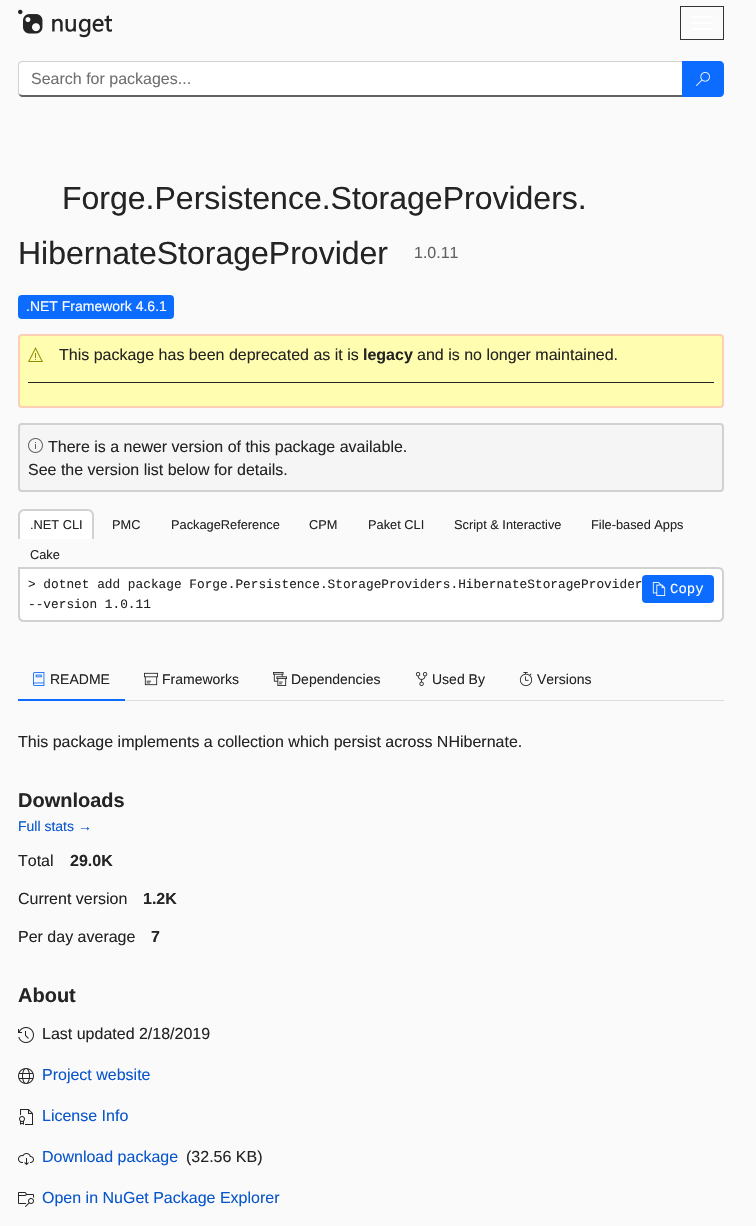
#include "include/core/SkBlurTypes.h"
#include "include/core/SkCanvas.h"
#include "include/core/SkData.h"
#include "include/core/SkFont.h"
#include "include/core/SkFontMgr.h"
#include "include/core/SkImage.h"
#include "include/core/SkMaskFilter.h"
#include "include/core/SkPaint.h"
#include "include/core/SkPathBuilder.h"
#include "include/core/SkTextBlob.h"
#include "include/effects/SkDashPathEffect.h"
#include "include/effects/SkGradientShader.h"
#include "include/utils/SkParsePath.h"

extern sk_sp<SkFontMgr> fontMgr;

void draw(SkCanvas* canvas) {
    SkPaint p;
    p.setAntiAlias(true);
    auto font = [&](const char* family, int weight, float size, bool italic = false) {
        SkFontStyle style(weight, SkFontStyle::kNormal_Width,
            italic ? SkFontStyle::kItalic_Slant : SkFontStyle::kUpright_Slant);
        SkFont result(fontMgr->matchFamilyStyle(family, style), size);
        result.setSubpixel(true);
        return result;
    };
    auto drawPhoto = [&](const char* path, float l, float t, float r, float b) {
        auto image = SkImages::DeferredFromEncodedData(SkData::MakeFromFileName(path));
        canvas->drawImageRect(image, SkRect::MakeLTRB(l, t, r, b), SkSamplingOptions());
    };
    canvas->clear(0xFFFAFAFA);
    drawPhoto("media/1.png", 18, 9, 112, 38);
    p.setStyle(SkPaint::kStroke_Style);
    p.setStrokeWidth(1);
    p.setColor(0xFF333333);
    canvas->drawRect(SkRect::MakeLTRB(680.5f, 6.5f, 723.5f, 39.5f), p);
    p.setStyle(SkPaint::kFill_Style);
    p.setColor(0xFFFFFFFF);
    canvas->drawRoundRect(SkRect::MakeLTRB(691, 16, 713, 18), 1, 1, p);
    canvas->drawRoundRect(SkRect::MakeLTRB(691, 22, 713, 24), 1, 1, p);
    canvas->drawRoundRect(SkRect::MakeLTRB(691, 28, 713, 30), 1, 1, p);
    canvas->drawPath(SkPathBuilder().moveTo(22, 62).lineTo(682, 62).lineTo(682, 95).lineTo(22, 95).cubicTo(20, 95, 19, 94, 19, 93).lineTo(19, 65).cubicTo(19, 63, 20, 62, 22, 62).close().detach(), p);
    p.setColor(0xFFD1D1D1);
    canvas->drawPath(SkPathBuilder().moveTo(22, 61).lineTo(19, 62).lineTo(20, 63).lineTo(22, 62).lineTo(682, 62).lineTo(683, 61).close().detach(), p);
    p.setColor(0xFF616161);
    canvas->drawPath(SkPathBuilder().moveTo(683, 97).lineTo(682, 95).lineTo(22, 95).lineTo(19, 94).lineTo(19, 95).cubicTo(20, 96, 21, 97, 22, 97).close().detach(), p);
    p.setColor(0xFFD1D1D1);
    canvas->drawPath(SkPathBuilder().moveTo(18, 65).lineTo(18, 93).cubicTo(18, 94, 18.5f, 94.5f, 19, 95.5f).lineTo(19.5f, 94).lineTo(19, 93).lineTo(19, 64.5f).lineTo(20, 63).lineTo(19, 62).cubicTo(18.5f, 63, 18, 64, 18, 65).close().detach(), p);
    auto font1 = font("Liberation Sans", 400, 16);
    p.setColor(0xFF707070);
    canvas->drawString("Search for packages...", 31, 84, font1, p);
    p.setColor(0xFF0B6CFF);
    canvas->drawPath(SkPathBuilder().moveTo(682, 61).lineTo(720, 61).cubicTo(722, 61, 724, 63, 724, 65).lineTo(724, 93).cubicTo(724, 95, 722, 97, 720, 97).lineTo(682, 97).close().detach(), p);
    drawPhoto("media/2.png", 696, 72, 710, 86);
    auto font2 = font("Liberation Sans", 400, 32);
    p.setColor(0xFF242424);
    canvas->drawString("Forge.Persistence.StorageProviders.", 62, 209, font2, p);
    canvas->drawString("HibernateStorageProvider", 18, 264, font2, p);
    p.setColor(0xFF616161);
    canvas->drawString("1.0.11", 414, 258, font1, p);
    p.setColor(0xFF0B6CFF);
    canvas->drawRoundRect(SkRect::MakeLTRB(18, 295, 174, 319), 4, 4, p);
    auto font3 = font("Liberation Sans", 400, 14);
    p.setColor(0xFFFFFFFF);
    canvas->drawString(".NET Framework 4.6.1", 26, 311, font3, p);
    p.setColor(0xFFFFFDAF);
    canvas->drawRoundRect(SkRect::MakeLTRB(19, 335, 723, 407), 3, 3, p);
    p.setStyle(SkPaint::kStroke_Style);
    p.setStrokeWidth(2);
    p.setColor(0xFFFDCFB4);
    canvas->drawRoundRect(SkRect::MakeLTRB(19, 335, 723, 407), 3, 3, p);
    drawPhoto("media/3.png", 28, 347, 43, 362);
    p.setStyle(SkPaint::kFill_Style);
    p.setColor(0xFF242424);
    canvas->drawString("This package has been deprecated as it is", 59, 360, font1, p);
    auto font4 = font("Liberation Sans", 700, 16);
    canvas->drawString("legacy", 363, 360, font4, p);
    canvas->drawString("and is no longer maintained.", 417, 360, font1, p);
    canvas->drawRect(SkRect::MakeLTRB(28, 382, 714, 383), p);
    p.setColor(0xFFF5F5F5);
    canvas->drawRoundRect(SkRect::MakeLTRB(19, 424, 723, 491), 3, 3, p);
    p.setStyle(SkPaint::kStroke_Style);
    p.setColor(0xFFD1D1D1);
    canvas->drawRoundRect(SkRect::MakeLTRB(19, 424, 723, 491), 3, 3, p);
    drawPhoto("media/4.png", 28, 438, 43, 453);
    p.setStyle(SkPaint::kFill_Style);
    p.setColor(0xFF242424);
    canvas->drawString("There is a newer version of this package available.", 48, 452, font1, p);
    canvas->drawString("See the version list below for details.", 28, 475, font1, p);
    p.setColor(0xFFFFFFFF);
    canvas->drawPath(SkPathBuilder().moveTo(24, 509).lineTo(88, 509).cubicTo(91.5f, 509, 94, 511.5f, 94, 515).lineTo(94, 539).lineTo(18, 539).lineTo(18, 515).cubicTo(18, 511.5f, 20.5f, 509, 24, 509).close().detach(), p);
    p.setColor(0xFFD1D1D1);
    canvas->drawPath(SkPathBuilder(SkPathFillType::kEvenOdd).moveTo(24, 509).lineTo(88, 509).cubicTo(91, 509, 94, 512, 94, 515).lineTo(94, 539).lineTo(18, 539).lineTo(18, 515).cubicTo(18, 512, 21, 509, 24, 509).close().moveTo(24, 511).lineTo(88, 511).cubicTo(90, 511, 92, 513, 92, 515).lineTo(92, 539).lineTo(20, 539).lineTo(20, 515).cubicTo(20, 513, 22, 511, 24, 511).close().detach(), p);
    auto font5 = font("Liberation Sans", 400, 12.8f);
    p.setColor(0xFF242424);
    {
        const struct { const char* s; float x, y; } items[] = {
            {".NET CLI", 30, 529},
            {"PMC", 112, 529},
            {"PackageReference", 171, 529},
            {"CPM", 309, 529},
            {"Paket CLI", 368, 529},
            {"Script & Interactive", 454, 529},
            {"File-based Apps", 591, 529},
            {"Cake", 30, 559},
        };
        for (auto [s, x, y] : items) {
            canvas->drawString(s, x, y, font5, p);
        }
    }
    p.setColor(0xFFFFFFFF);
    canvas->drawPath(SkPathBuilder().moveTo(19, 568).lineTo(718, 568).cubicTo(721, 568, 723, 570, 723, 573).lineTo(723, 616).cubicTo(723, 619, 721, 621, 718, 621).lineTo(24, 621).cubicTo(21, 621, 19, 619, 19, 616).close().detach(), p);
    p.setStyle(SkPaint::kStroke_Style);
    p.setColor(0xFFD1D1D1);
    canvas->drawPath(SkPathBuilder().moveTo(19, 568).lineTo(718, 568).cubicTo(721, 568, 723, 570, 723, 573).lineTo(723, 616).cubicTo(723, 619, 721, 621, 718, 621).lineTo(24, 621).cubicTo(21, 621, 19, 619, 19, 616).close().detach(), p);
    auto font6 = font("Liberation Mono", 400, 12.8f);
    p.setStyle(SkPaint::kFill_Style);
    p.setColor(0xFF242424);
    canvas->drawString("> dotnet add package Forge.Persistence.StorageProviders.HibernateStorageProvider", 28, 588, font6, p);
    canvas->drawString("--version 1.0.11", 28, 608, font6, p);
    p.setColor(0xFF0B6CFF);
    canvas->drawRoundRect(SkRect::MakeLTRB(642, 575, 714, 603), 4, 4, p);
    drawPhoto("media/5.png", 652, 582, 666, 596);
    auto font7 = font("Liberation Mono", 400, 14);
    p.setColor(0xFFFFFFFF);
    canvas->drawString("Copy", 670, 593, font7, p);
    p.setColor(0xFFDDDDDD);
    canvas->drawRect(SkRect::MakeLTRB(125, 700, 724, 701), p);
    p.setColor(0xFF0B6CFF);
    canvas->drawRect(SkRect::MakeLTRB(18, 699, 125, 701), p);
    drawPhoto("media/6.png", 33, 672, 45, 686);
    p.setColor(0xFF242424);
    canvas->drawString("README", 50, 684, font3, p);
    drawPhoto("media/7.png", 144, 672, 158, 686);
    canvas->drawString("Frameworks", 162, 684, font3, p);
    drawPhoto("media/8.png", 273, 672, 287, 686);
    canvas->drawString("Dependencies", 291, 684, font3, p);
    drawPhoto("media/9.png", 415, 672, 428, 686);
    canvas->drawString("Used By", 432, 684, font3, p);
    drawPhoto("media/10.png", 519, 672, 533, 686);
    canvas->drawString("Versions", 537, 684, font3, p);
    canvas->drawString("This package implements a collection which persist across NHibernate.", 18, 747, font1, p);
    auto font8 = font("Liberation Sans", 700, 20);
    canvas->drawString("Downloads", 18, 807, font8, p);
    p.setColor(0xFF0956CC);
    canvas->drawString("Full stats →", 18, 831, font3, p);
    p.setColor(0xFF242424);
    canvas->drawString("Total", 18, 866, font1, p);
    canvas->drawString("29.0K", 70, 866, font4, p);
    canvas->drawString("Current version", 18, 904, font1, p);
    canvas->drawString("1.2K", 143, 904, font4, p);
    canvas->drawString("Per day average", 18, 942, font1, p);
    canvas->drawString("7", 151, 942, font4, p);
    canvas->drawString("About", 18, 1002, font8, p);
    drawPhoto("media/11.png", 18, 1027, 34, 1043);
    canvas->drawString("Last updated 2/18/2019", 42, 1039, font1, p);
    drawPhoto("media/12.png", 18, 1068, 34, 1084);
    p.setColor(0xFF0956CC);
    canvas->drawString("Project website", 42, 1080, font1, p);
    drawPhoto("media/13.png", 19, 1109, 33, 1125);
    canvas->drawString("License Info", 42, 1121, font1, p);
    drawPhoto("media/14.png", 18, 1153, 34, 1166);
    canvas->drawString("Download package", 42, 1162, font1, p);
    p.setColor(0xFF242424);
    canvas->drawString("(32.56 KB)", 186, 1162, font1, p);
    drawPhoto("media/15.png", 18, 1192, 34, 1207);
    p.setColor(0xFF0956CC);
    canvas->drawString("Open in NuGet Package Explorer", 42, 1203, font1, p);
}
